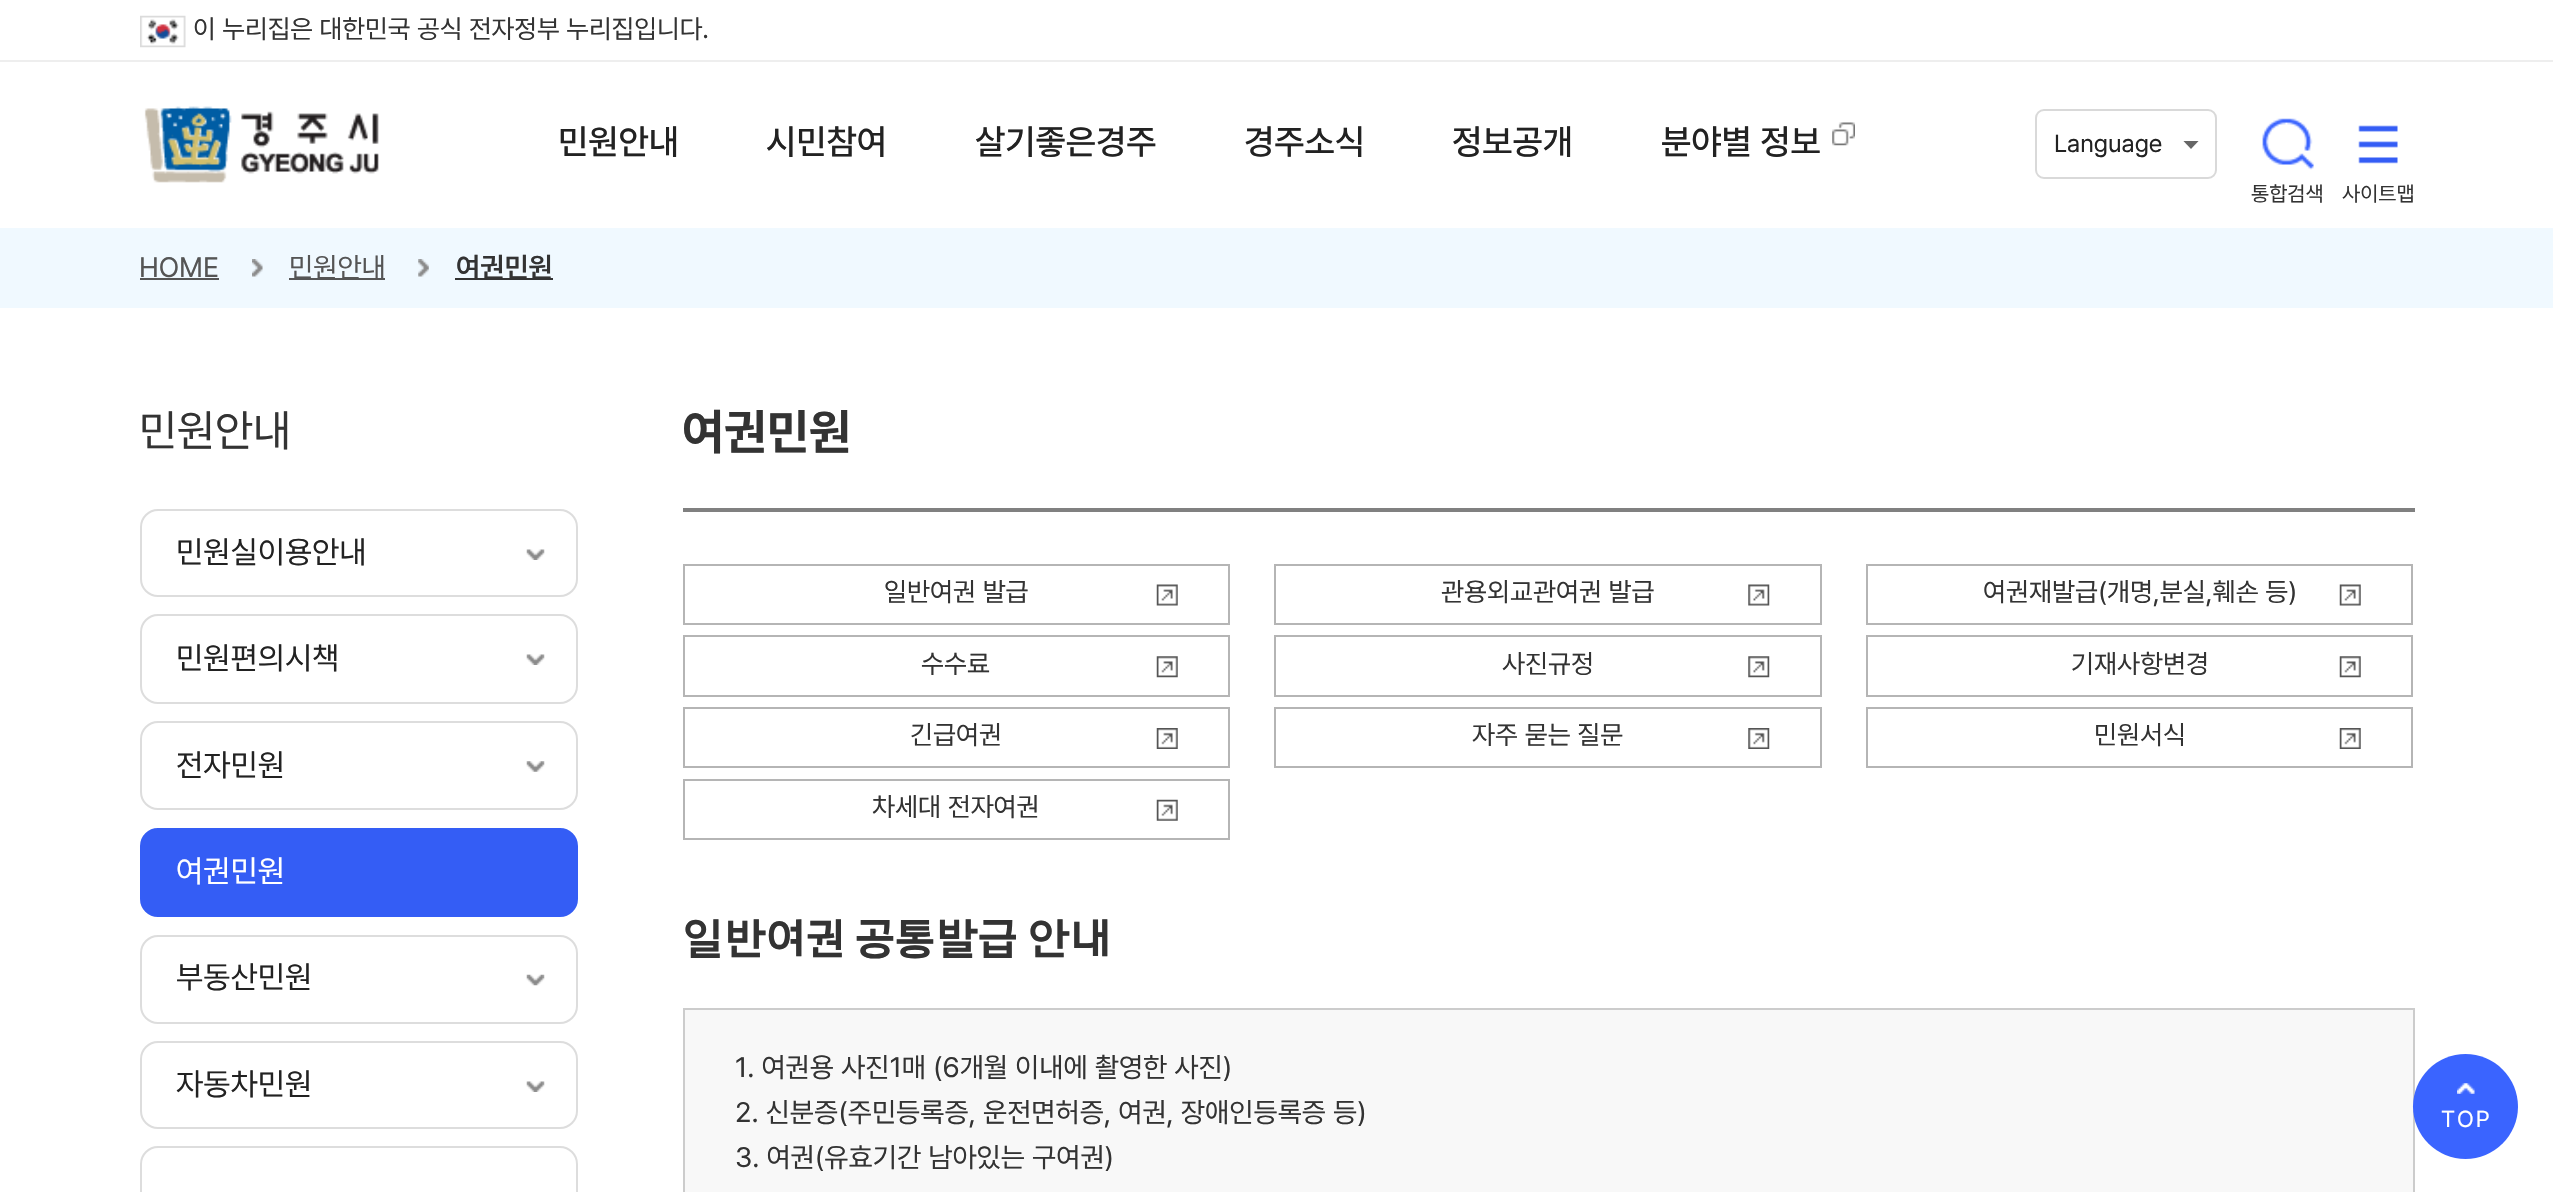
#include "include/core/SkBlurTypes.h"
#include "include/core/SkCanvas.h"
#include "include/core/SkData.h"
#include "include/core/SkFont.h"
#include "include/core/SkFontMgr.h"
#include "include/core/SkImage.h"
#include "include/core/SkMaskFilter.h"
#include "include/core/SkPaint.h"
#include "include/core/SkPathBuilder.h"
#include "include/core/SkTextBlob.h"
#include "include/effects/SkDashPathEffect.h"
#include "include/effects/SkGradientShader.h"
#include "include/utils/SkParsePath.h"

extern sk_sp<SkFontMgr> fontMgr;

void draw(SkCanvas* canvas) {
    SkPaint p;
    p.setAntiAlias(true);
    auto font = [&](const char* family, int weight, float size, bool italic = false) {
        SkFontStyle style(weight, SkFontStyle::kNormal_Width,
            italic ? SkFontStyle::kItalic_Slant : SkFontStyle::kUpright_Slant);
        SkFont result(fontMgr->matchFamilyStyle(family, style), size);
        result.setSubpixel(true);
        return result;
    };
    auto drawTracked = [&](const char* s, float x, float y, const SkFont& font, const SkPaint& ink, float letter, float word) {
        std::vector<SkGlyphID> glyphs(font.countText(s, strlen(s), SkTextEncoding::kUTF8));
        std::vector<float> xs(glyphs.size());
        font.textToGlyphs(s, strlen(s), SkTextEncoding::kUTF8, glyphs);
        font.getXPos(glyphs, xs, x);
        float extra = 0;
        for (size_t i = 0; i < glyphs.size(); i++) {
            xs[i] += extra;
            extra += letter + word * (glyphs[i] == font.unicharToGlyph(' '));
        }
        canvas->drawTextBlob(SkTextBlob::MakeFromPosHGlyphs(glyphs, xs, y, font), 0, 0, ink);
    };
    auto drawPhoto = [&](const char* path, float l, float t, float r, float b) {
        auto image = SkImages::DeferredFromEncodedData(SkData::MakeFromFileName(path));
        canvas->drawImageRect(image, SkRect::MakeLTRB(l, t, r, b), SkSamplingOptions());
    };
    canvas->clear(0xFFFFFFFF);
    p.setColor(0xFFEEEEEE);
    canvas->drawRect(SkRect::MakeLTRB(0, 60, 2553, 62), p);
    drawPhoto("media/1.png", 140, 15, 186, 48);
    auto font1 = font("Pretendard", 400, 26.25f);
    p.setColor(0xFF333333);
    canvas->drawString("이 누리집은 대한민국 공식 전자정부 누리집입니다.", 193, 38, font1, p);
    drawPhoto("media/2.png", 144, 106, 379, 183);
    auto font2 = font("Pretendard", 500, 35);
    p.setColor(0xFF222222);
    {
        const struct { const char* s; float x, y; } items[] = {
            {"민원안내", 558, 154},
            {"시민참여", 766, 154},
            {"살기좋은경주", 975, 154},
            {"경주소식", 1244, 154},
            {"정보공개", 1452, 154},
            {"분야별 정보", 1661, 154},
        };
        for (auto [s, x, y] : items) {
            canvas->drawString(s, x, y, font2, p);
        }
    }
    drawPhoto("media/3.png", 1832, 122, 1855, 146);
    p.setStyle(SkPaint::kStroke_Style);
    p.setStrokeWidth(2);
    p.setColor(0xFFD9D9D9);
    canvas->drawRoundRect(SkRect::MakeLTRB(2036, 110, 2216, 178), 8, 8, p);
    auto font3 = font("Pretendard", 400, 24.5f);
    p.setStyle(SkPaint::kFill_Style);
    p.setColor(0xFF222222);
    canvas->drawString("Language", 2054, 152, font3, p);
    {
        const SkColor colors[] = {0xFF666666, 0xFFFFFFFF};
        const float stops[] = {0.5f, 0.5f};
        const SkPoint ends[] = {{2191, 149}, {2191, 132}};
        p.setShader(SkGradientShader::MakeLinear(ends, colors, stops, 2, SkTileMode::kClamp));
        p.setAlpha(255);
    }
    canvas->drawPath(SkPathBuilder().moveTo(2182.5f, 140).lineTo(2191, 131.5f).lineTo(2199.5f, 140).lineTo(2191, 149).close().detach(), p);
    drawPhoto("media/4.png", 2262, 118, 2314, 170);
    auto font4 = font("Pretendard", 400, 21);
    p.setShader(nullptr);
    p.setColor(0xFF333333);
    canvas->drawString("통합검색", 2251, 201, font4, p);
    drawPhoto("media/5.png", 2358, 125, 2398, 164);
    canvas->drawString("사이트맵", 2342, 201, font4, p);
    p.setColor(0xFFF0F9FF);
    canvas->drawRect(SkRect::MakeLTRB(0, 228, 2553, 308), p);
    auto font5 = font("Pretendard", 400, 28);
    p.setColor(0xFF555555);
    canvas->drawString("HOME", 139, 277, font5, p);
    canvas->drawRect(SkRect::MakeLTRB(140, 278, 219, 280), p);
    drawPhoto("media/6.png", 252, 259, 263, 277);
    canvas->drawRect(SkRect::MakeLTRB(289, 278, 385, 280), p);
    canvas->drawString("민원안내", 289, 277, font5, p);
    drawPhoto("media/7.png", 418, 259, 429, 277);
    p.setColor(0xFF333333);
    canvas->drawRect(SkRect::MakeLTRB(455, 278, 553, 280), p);
    auto font6 = font("Pretendard", 600, 28);
    canvas->drawString("여권민원", 456, 277, font6, p);
    auto font7 = font("Pretendard", 400, 44);
    canvas->drawString("민원안내", 139, 446, font7, p);
    p.setStyle(SkPaint::kStroke_Style);
    p.setColor(0xFFDDDDDD);
    canvas->drawRoundRect(SkRect::MakeLTRB(141, 510, 577, 596), 17, 17, p);
    auto font8 = font("Pretendard", 400, 31.5f);
    p.setStyle(SkPaint::kFill_Style);
    p.setColor(0xFF222222);
    canvas->drawString("민원실이용안내", 176, 563, font8, p);
    drawPhoto("media/8.png", 526, 549, 545, 560);
    p.setStyle(SkPaint::kStroke_Style);
    p.setColor(0xFFDDDDDD);
    canvas->drawRoundRect(SkRect::MakeLTRB(141, 615, 577, 703), 17, 17, p);
    p.setStyle(SkPaint::kFill_Style);
    p.setColor(0xFF222222);
    canvas->drawString("민원편의시책", 176, 669, font8, p);
    drawPhoto("media/9.png", 526, 654, 545, 665);
    p.setStyle(SkPaint::kStroke_Style);
    p.setColor(0xFFDDDDDD);
    canvas->drawRoundRect(SkRect::MakeLTRB(141, 722, 577, 809), 17, 17, p);
    p.setStyle(SkPaint::kFill_Style);
    p.setColor(0xFF222222);
    canvas->drawString("전자민원", 176, 776, font8, p);
    drawPhoto("media/10.png", 526, 761, 545, 772);
    p.setColor(0xFF345DF5);
    canvas->drawRoundRect(SkRect::MakeLTRB(141, 829, 577, 916), 17, 17, p);
    p.setStyle(SkPaint::kStroke_Style);
    canvas->drawRoundRect(SkRect::MakeLTRB(141, 829, 577, 916), 17, 17, p);
    p.setStyle(SkPaint::kFill_Style);
    p.setColor(0xFFFFFFFF);
    canvas->drawString("여권민원", 176, 882, font8, p);
    p.setStyle(SkPaint::kStroke_Style);
    p.setColor(0xFFDDDDDD);
    canvas->drawRoundRect(SkRect::MakeLTRB(141, 936, 577, 1023), 17, 17, p);
    p.setStyle(SkPaint::kFill_Style);
    p.setColor(0xFF222222);
    canvas->drawString("부동산민원", 176, 988, font8, p);
    drawPhoto("media/11.png", 526, 974, 545, 986);
    p.setStyle(SkPaint::kStroke_Style);
    p.setColor(0xFFDDDDDD);
    canvas->drawRoundRect(SkRect::MakeLTRB(141, 1042, 577, 1128), 17, 17, p);
    p.setStyle(SkPaint::kFill_Style);
    p.setColor(0xFF222222);
    canvas->drawString("자동차민원", 176, 1095, font8, p);
    drawPhoto("media/8.png", 526, 1081, 545, 1092);
    p.setStyle(SkPaint::kStroke_Style);
    p.setColor(0xFFDDDDDD);
    canvas->drawRoundRect(SkRect::MakeLTRB(141, 1147, 577, 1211), 17, 17, p);
    p.setStyle(SkPaint::kFill_Style);
    p.setColor(0xFF808080);
    canvas->drawRect(SkRect::MakeLTRB(683, 508, 2415, 512), p);
    auto font9 = font("Pretendard", 700, 49);
    p.setColor(0xFF333333);
    canvas->drawString("여권민원", 682, 449, font9, p);
    drawPhoto("media/12.png", 1156, 584, 1178, 606);
    p.setStyle(SkPaint::kStroke_Style);
    p.setColor(0xFFB5B5B5);
    canvas->drawRect(SkRect::MakeLTRB(684, 565, 1229, 624), p);
    auto font10 = font("Pretendard", 400, 26.6f);
    p.setStyle(SkPaint::kFill_Style);
    p.setColor(0xFF333333);
    canvas->drawString("일반여권 발급", 884, 601, font10, p);
    drawPhoto("media/13.png", 1748, 584, 1770, 606);
    p.setStyle(SkPaint::kStroke_Style);
    p.setColor(0xFFB5B5B5);
    canvas->drawRect(SkRect::MakeLTRB(1275, 565, 1821, 624), p);
    p.setStyle(SkPaint::kFill_Style);
    p.setColor(0xFF333333);
    canvas->drawString("관용외교관여권 발급", 1441, 601, font10, p);
    drawPhoto("media/12.png", 2339, 584, 2361, 606);
    p.setStyle(SkPaint::kStroke_Style);
    p.setColor(0xFFB5B5B5);
    canvas->drawRect(SkRect::MakeLTRB(1867, 565, 2412, 624), p);
    p.setStyle(SkPaint::kFill_Style);
    p.setColor(0xFF333333);
    canvas->drawString("여권재발급(개명,분실,훼손 등)", 1983, 601, font10, p);
    drawPhoto("media/14.png", 1156, 656, 1178, 678);
    p.setStyle(SkPaint::kStroke_Style);
    p.setColor(0xFFB5B5B5);
    canvas->drawRect(SkRect::MakeLTRB(684, 636, 1229, 696), p);
    p.setStyle(SkPaint::kFill_Style);
    p.setColor(0xFF333333);
    canvas->drawString("수수료", 921, 673, font10, p);
    drawPhoto("media/15.png", 1748, 656, 1770, 678);
    p.setStyle(SkPaint::kStroke_Style);
    p.setColor(0xFFB5B5B5);
    canvas->drawRect(SkRect::MakeLTRB(1275, 636, 1821, 696), p);
    p.setStyle(SkPaint::kFill_Style);
    p.setColor(0xFF333333);
    canvas->drawString("사진규정", 1502, 673, font10, p);
    drawPhoto("media/14.png", 2339, 656, 2361, 678);
    p.setStyle(SkPaint::kStroke_Style);
    p.setColor(0xFFB5B5B5);
    canvas->drawRect(SkRect::MakeLTRB(1867, 636, 2412, 696), p);
    p.setStyle(SkPaint::kFill_Style);
    p.setColor(0xFF333333);
    canvas->drawString("기재사항변경", 2071, 673, font10, p);
    drawPhoto("media/16.png", 1156, 728, 1178, 749);
    p.setStyle(SkPaint::kStroke_Style);
    p.setColor(0xFFB5B5B5);
    canvas->drawRect(SkRect::MakeLTRB(684, 708, 1229, 767), p);
    p.setStyle(SkPaint::kFill_Style);
    p.setColor(0xFF333333);
    canvas->drawString("긴급여권", 910, 744, font10, p);
    drawPhoto("media/17.png", 1748, 728, 1770, 749);
    p.setStyle(SkPaint::kStroke_Style);
    p.setColor(0xFFB5B5B5);
    canvas->drawRect(SkRect::MakeLTRB(1275, 708, 1821, 767), p);
    p.setStyle(SkPaint::kFill_Style);
    p.setColor(0xFF333333);
    canvas->drawString("자주 묻는 질문", 1472, 744, font10, p);
    drawPhoto("media/16.png", 2339, 728, 2361, 749);
    p.setStyle(SkPaint::kStroke_Style);
    p.setColor(0xFFB5B5B5);
    canvas->drawRect(SkRect::MakeLTRB(1867, 708, 2412, 767), p);
    p.setStyle(SkPaint::kFill_Style);
    p.setColor(0xFF333333);
    canvas->drawString("민원서식", 2094, 744, font10, p);
    drawPhoto("media/18.png", 1156, 799, 1178, 821);
    p.setStyle(SkPaint::kStroke_Style);
    p.setColor(0xFFB5B5B5);
    canvas->drawRect(SkRect::MakeLTRB(684, 780, 1229, 839), p);
    p.setStyle(SkPaint::kFill_Style);
    p.setColor(0xFF333333);
    canvas->drawString("차세대 전자여권", 872, 816, font10, p);
    auto font11 = font("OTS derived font", 700, 44);
    {
        const struct { const char* s; float x, y; } items[] = {
            {"일반여권", 682, 953},
            {"공통발급", 855, 953},
            {"안내", 1027, 953},
        };
        for (auto [s, x, y] : items) {
            canvas->drawString(s, x, y, font11, p);
        }
    }
    p.setColor(0xFFF8F8F8);
    canvas->drawRect(SkRect::MakeLTRB(684, 1009, 2414, 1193), p);
    p.setStyle(SkPaint::kStroke_Style);
    p.setColor(0xFFCCCCCC);
    canvas->drawRect(SkRect::MakeLTRB(684, 1009, 2414, 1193), p);
    p.setStyle(SkPaint::kFill_Style);
    p.setColor(0xFF333333);
    {
        const struct { const char* s; float x, y; } items[] = {
            {"1. 여권용 사진1매 (6개월 이내에 촬영한 사진)", 735, 1077},
            {"2. 신분증(주민등록증, 운전면허증, 여권, 장애인등록증 등)", 735, 1122},
            {"3. 여권(유효기간 남아있는 구여권)", 735, 1167},
        };
        for (auto [s, x, y] : items) {
            canvas->drawString(s, x, y, font5, p);
        }
    }
    p.setColor(0xFF3A64FF);
    canvas->drawCircle(2465.5f, 1106.5f, 52.5f, p);
    drawPhoto("media/19.png", 2457, 1083, 2475, 1094);
    auto font12 = font("Pretendard", 400, 23);
    p.setColor(0xFFFFFFFF);
    drawTracked("TOP", 2441, 1127, font12, p, 2, 0);
}
